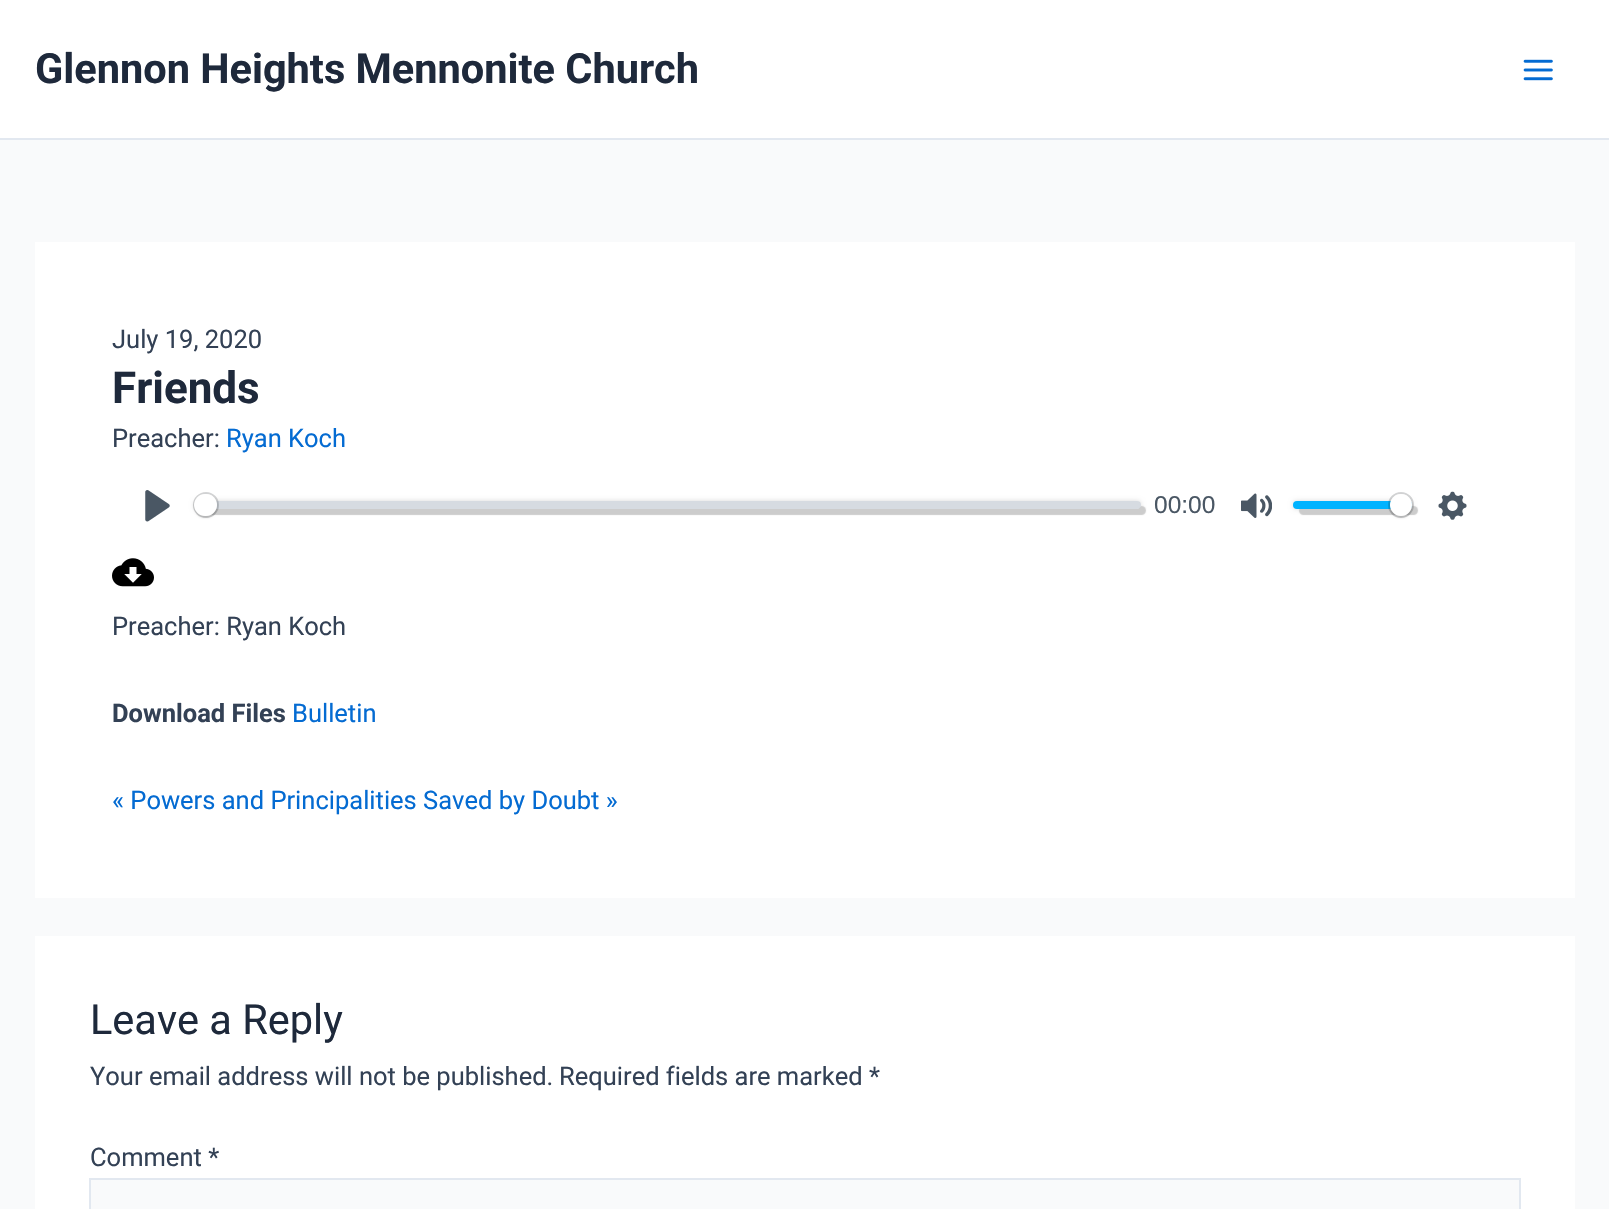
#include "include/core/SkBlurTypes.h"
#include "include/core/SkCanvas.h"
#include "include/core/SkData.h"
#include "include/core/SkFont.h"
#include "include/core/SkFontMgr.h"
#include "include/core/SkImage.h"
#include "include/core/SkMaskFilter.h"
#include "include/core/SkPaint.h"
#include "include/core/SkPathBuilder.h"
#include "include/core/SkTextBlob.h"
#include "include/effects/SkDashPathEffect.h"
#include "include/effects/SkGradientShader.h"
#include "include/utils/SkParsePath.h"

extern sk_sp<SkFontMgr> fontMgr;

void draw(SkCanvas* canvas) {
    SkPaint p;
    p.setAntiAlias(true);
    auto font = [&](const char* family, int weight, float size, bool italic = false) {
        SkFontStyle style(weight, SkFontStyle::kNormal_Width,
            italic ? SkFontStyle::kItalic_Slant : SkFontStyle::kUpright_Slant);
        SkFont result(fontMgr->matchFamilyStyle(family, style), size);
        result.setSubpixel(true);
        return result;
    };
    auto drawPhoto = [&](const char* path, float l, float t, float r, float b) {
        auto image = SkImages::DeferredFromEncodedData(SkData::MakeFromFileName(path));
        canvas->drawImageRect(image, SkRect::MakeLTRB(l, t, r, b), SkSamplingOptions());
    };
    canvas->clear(0xFFF9FAFB);
    p.setColor(0xFFFFFFFF);
    canvas->drawRect(SkRect::MakeLTRB(0, 0, 1609, 138), p);
    p.setColor(0xFFE2E8F0);
    canvas->drawRect(SkRect::MakeLTRB(0, 138, 1609, 140), p);
    auto font1 = font("Roboto", 700, 41.5f);
    p.setColor(0xFF1E293B);
    canvas->drawString("Glennon Heights Mennonite Church", 35, 83, font1, p);
    drawPhoto("media/1.png", 1523, 59, 1553, 81);
    p.setColor(0xFFFFFFFF);
    canvas->drawRect(SkRect::MakeLTRB(35, 242, 1575, 898), p);
    auto font2 = font("Roboto", 400, 25.5f);
    p.setColor(0xFF334155);
    canvas->drawString("July 19, 2020", 112, 348, font2, p);
    auto font3 = font("Roboto", 700, 44);
    p.setColor(0xFF1E293B);
    canvas->drawString("Friends", 112, 403, font3, p);
    p.setColor(0xFF334155);
    canvas->drawString("Preacher:", 112, 447, font2, p);
    p.setColor(0xFF046BD2);
    canvas->drawString("Ryan Koch", 226, 447, font2, p);
    drawPhoto("media/2.png", 145, 490, 170, 522);
    canvas->save();
    canvas->clipPath(SkPathBuilder(SkPathFillType::kEvenOdd).moveTo(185, 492).lineTo(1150, 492).lineTo(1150, 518).lineTo(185, 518).close().moveTo(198, 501).lineTo(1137, 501).cubicTo(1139, 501, 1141, 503, 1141, 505).cubicTo(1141, 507, 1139, 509, 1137, 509).lineTo(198, 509).cubicTo(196, 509, 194, 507, 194, 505).cubicTo(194, 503, 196, 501, 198, 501).close().detach(), true);
    p.setColor(0xFFD9D9D9);
    p.setMaskFilter(SkMaskFilter::MakeBlur(kNormal_SkBlurStyle, 2.5f));
    canvas->drawRoundRect(SkRect::MakeLTRB(194, 501, 1141, 509), 4, 4, p);
    p.setMaskFilter(nullptr);
    canvas->restore();
    canvas->save();
    canvas->clipPath(SkPathBuilder(SkPathFillType::kEvenOdd).moveTo(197, 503).lineTo(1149, 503).lineTo(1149, 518).lineTo(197, 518).close().moveTo(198, 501).lineTo(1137, 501).cubicTo(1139, 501, 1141, 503, 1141, 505).cubicTo(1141, 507, 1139, 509, 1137, 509).lineTo(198, 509).cubicTo(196, 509, 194, 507, 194, 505).cubicTo(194, 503, 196, 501, 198, 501).close().detach(), true);
    p.setColor(0xFFCCCCCC);
    p.setMaskFilter(SkMaskFilter::MakeBlur(kNormal_SkBlurStyle, 0.5f));
    canvas->drawRoundRect(SkRect::MakeLTRB(200, 506, 1146, 515), 4.5f, 4.5f, p);
    p.setMaskFilter(nullptr);
    canvas->restore();
    p.setColor(0xA8C1C9D1);
    canvas->drawRoundRect(SkRect::MakeLTRB(194, 501, 1141, 509), 4, 4, p);
    p.setStyle(SkPaint::kStroke_Style);
    p.setStrokeWidth(2);
    p.setColor(0x3323292F);
    canvas->drawCircle(206, 505, 12, p);
    p.setStyle(SkPaint::kFill_Style);
    p.setColor(0x26000000);
    p.setMaskFilter(SkMaskFilter::MakeBlur(kNormal_SkBlurStyle, 1));
    canvas->drawRoundRect(SkRect::MakeLTRB(194, 495, 217, 518), 11.5f, 11.5f, p);
    p.setMaskFilter(nullptr);
    p.setColor(0xFFFFFFFF);
    canvas->drawRoundRect(SkRect::MakeLTRB(194, 494, 217, 516), 11, 11, p);
    auto font4 = font("Liberation Sans", 400, 24.5f);
    p.setColor(0xFF4A5764);
    canvas->drawString("00:00", 1154, 513, font4, p);
    drawPhoto("media/3.png", 1241, 493, 1272, 518);
    p.setColor(0xFFD9D9D9);
    p.setMaskFilter(SkMaskFilter::MakeBlur(kNormal_SkBlurStyle, 2.5f));
    canvas->drawRoundRect(SkRect::MakeLTRB(1293, 501, 1412, 509), 4, 4, p);
    p.setMaskFilter(nullptr);
    p.setColor(0xFFCCCCCC);
    p.setMaskFilter(SkMaskFilter::MakeBlur(kNormal_SkBlurStyle, 0.5f));
    canvas->drawRoundRect(SkRect::MakeLTRB(1299, 506, 1418, 515), 4.5f, 4.5f, p);
    p.setMaskFilter(nullptr);
    p.setColor(0xFF00B3FF);
    canvas->drawRoundRect(SkRect::MakeLTRB(1293, 501, 1412, 509), 4, 4, p);
    p.setStyle(SkPaint::kStroke_Style);
    p.setColor(0x3323292F);
    canvas->drawCircle(1401, 505, 12, p);
    p.setStyle(SkPaint::kFill_Style);
    p.setColor(0x26000000);
    p.setMaskFilter(SkMaskFilter::MakeBlur(kNormal_SkBlurStyle, 1));
    canvas->drawRoundRect(SkRect::MakeLTRB(1390, 495, 1412, 518), 11, 11, p);
    p.setMaskFilter(nullptr);
    p.setColor(0xFFFFFFFF);
    canvas->drawCircle(1401, 505, 11, p);
    drawPhoto("media/4.png", 1438, 491, 1467, 520);
    drawPhoto("media/5.png", 112, 558, 154, 587);
    p.setColor(0xFF334155);
    canvas->drawString("Preacher: Ryan Koch", 112, 635, font2, p);
    auto font5 = font("Roboto", 700, 25.5f);
    canvas->drawString("Download Files", 112, 722, font5, p);
    p.setColor(0xFF046BD2);
    canvas->drawString("Bulletin", 292, 722, font2, p);
    canvas->drawString("« Powers and Principalities Saved by Doubt »", 112, 809, font2, p);
    p.setColor(0xFFFFFFFF);
    canvas->drawRect(SkRect::MakeLTRB(35, 936, 1575, 1209), p);
    auto font6 = font("Roboto", 400, 41.5f);
    p.setColor(0xFF1E293B);
    canvas->drawString("Leave a Reply", 90, 1034, font6, p);
    p.setColor(0xFF334155);
    {
        const struct { const char* s; float x, y; } items[] = {
            {"Your email address will not be published.", 90, 1085},
            {"Required fields are marked *", 559, 1085},
            {"Comment *", 90, 1166},
        };
        for (auto [s, x, y] : items) {
            canvas->drawString(s, x, y, font2, p);
        }
    }
    p.setColor(0xFFF9FAFB);
    canvas->drawRect(SkRect::MakeLTRB(90, 1179, 1520, 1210), p);
    p.setStyle(SkPaint::kStroke_Style);
    p.setColor(0xFFE2E8F0);
    canvas->drawRect(SkRect::MakeLTRB(90, 1179, 1520, 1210), p);
}
